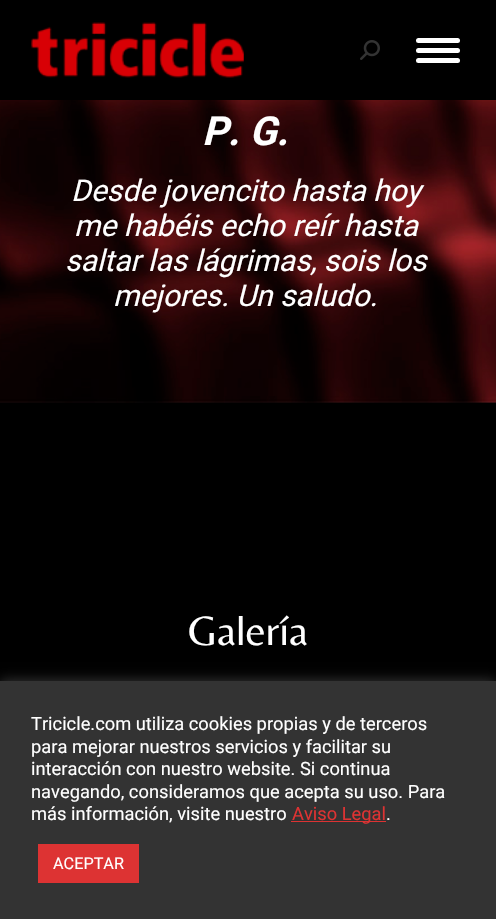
#include "include/core/SkBlurTypes.h"
#include "include/core/SkCanvas.h"
#include "include/core/SkData.h"
#include "include/core/SkFont.h"
#include "include/core/SkFontMgr.h"
#include "include/core/SkImage.h"
#include "include/core/SkMaskFilter.h"
#include "include/core/SkPaint.h"
#include "include/core/SkPathBuilder.h"
#include "include/core/SkTextBlob.h"
#include "include/effects/SkDashPathEffect.h"
#include "include/effects/SkGradientShader.h"
#include "include/utils/SkParsePath.h"

extern sk_sp<SkFontMgr> fontMgr;

void draw(SkCanvas* canvas) {
    SkPaint p;
    p.setAntiAlias(true);
    auto font = [&](const char* family, int weight, float size, bool italic = false) {
        SkFontStyle style(weight, SkFontStyle::kNormal_Width,
            italic ? SkFontStyle::kItalic_Slant : SkFontStyle::kUpright_Slant);
        SkFont result(fontMgr->matchFamilyStyle(family, style), size);
        result.setSubpixel(true);
        return result;
    };
    auto drawPhoto = [&](const char* path, float l, float t, float r, float b) {
        auto image = SkImages::DeferredFromEncodedData(SkData::MakeFromFileName(path));
        canvas->drawImageRect(image, SkRect::MakeLTRB(l, t, r, b), SkSamplingOptions());
    };
    canvas->clear(0xFF000000);
    drawPhoto("media/1.png", 31, 22, 244, 78);
    drawPhoto("media/2.png", 360, 40, 380, 60);
    p.setColor(0xFFFFFFFF);
    canvas->drawRoundRect(SkRect::MakeLTRB(416, 38, 460, 43), 2.5f, 2.5f, p);
    canvas->drawRoundRect(SkRect::MakeLTRB(416, 48, 460, 53), 2.5f, 2.5f, p);
    canvas->drawRoundRect(SkRect::MakeLTRB(416, 58, 460, 63), 2.5f, 2.5f, p);
    drawPhoto("media/3.png", 0, 100, 496, 403);
    auto font1 = font("Roboto", 700, 40, true);
    canvas->drawString("P. G.", 202, 145, font1, p);
    auto font2 = font("Roboto", 400, 30, true);
    {
        const struct { const char* s; float x, y; } items[] = {
            {"Desde jovencito hasta hoy", 71, 201},
            {"me habéis echo reír hasta", 74, 236},
            {"saltar las lágrimas, sois los", 65, 271},
            {"mejores. Un saludo.", 113, 306},
        };
        for (auto [s, x, y] : items) {
            canvas->drawString(s, x, y, font2, p);
        }
    }
    auto font3 = font("Belleza", 400, 42.5f);
    canvas->drawString("Galería", 188, 645, font3, p);
    p.setColor(0x4DACABAB);
    p.setMaskFilter(SkMaskFilter::MakeBlur(kNormal_SkBlurStyle, 6));
    canvas->drawRect(SkRect::MakeLTRB(0, 680, 496, 919), p);
    p.setMaskFilter(nullptr);
    p.setColor(0xFF333333);
    canvas->drawRect(SkRect::MakeLTRB(0, 681, 496, 919), p);
    auto font4 = font("Roboto", 400, 18.3f);
    p.setColor(0xFFFFFFFF);
    {
        const struct { const char* s; float x, y; } items[] = {
            {"Tricicle.com utiliza cookies propias y de terceros", 31, 730},
            {"para mejorar nuestros servicios y facilitar su", 31, 753},
            {"interacción con nuestro website. Si continua", 31, 775},
            {"navegando, consideramos que acepta su uso. Para", 31, 798},
            {"más información, visite nuestro", 31, 820},
        };
        for (auto [s, x, y] : items) {
            canvas->drawString(s, x, y, font4, p);
        }
    }
    p.setColor(0xFFDD3333);
    canvas->drawRect(SkRect::MakeLTRB(291, 821, 386, 822), p);
    canvas->drawString("Aviso Legal", 292, 820, font4, p);
    p.setColor(0xFFFFFFFF);
    canvas->drawString(".", 386, 820, font4, p);
    p.setColor(0xFFDD3333);
    canvas->drawRect(SkRect::MakeLTRB(38, 844, 139, 883), p);
    auto font5 = font("Roboto", 400, 16.25f);
    p.setColor(0xFFFFFFFF);
    canvas->drawString("ACEPTAR", 53, 869, font5, p);
}
